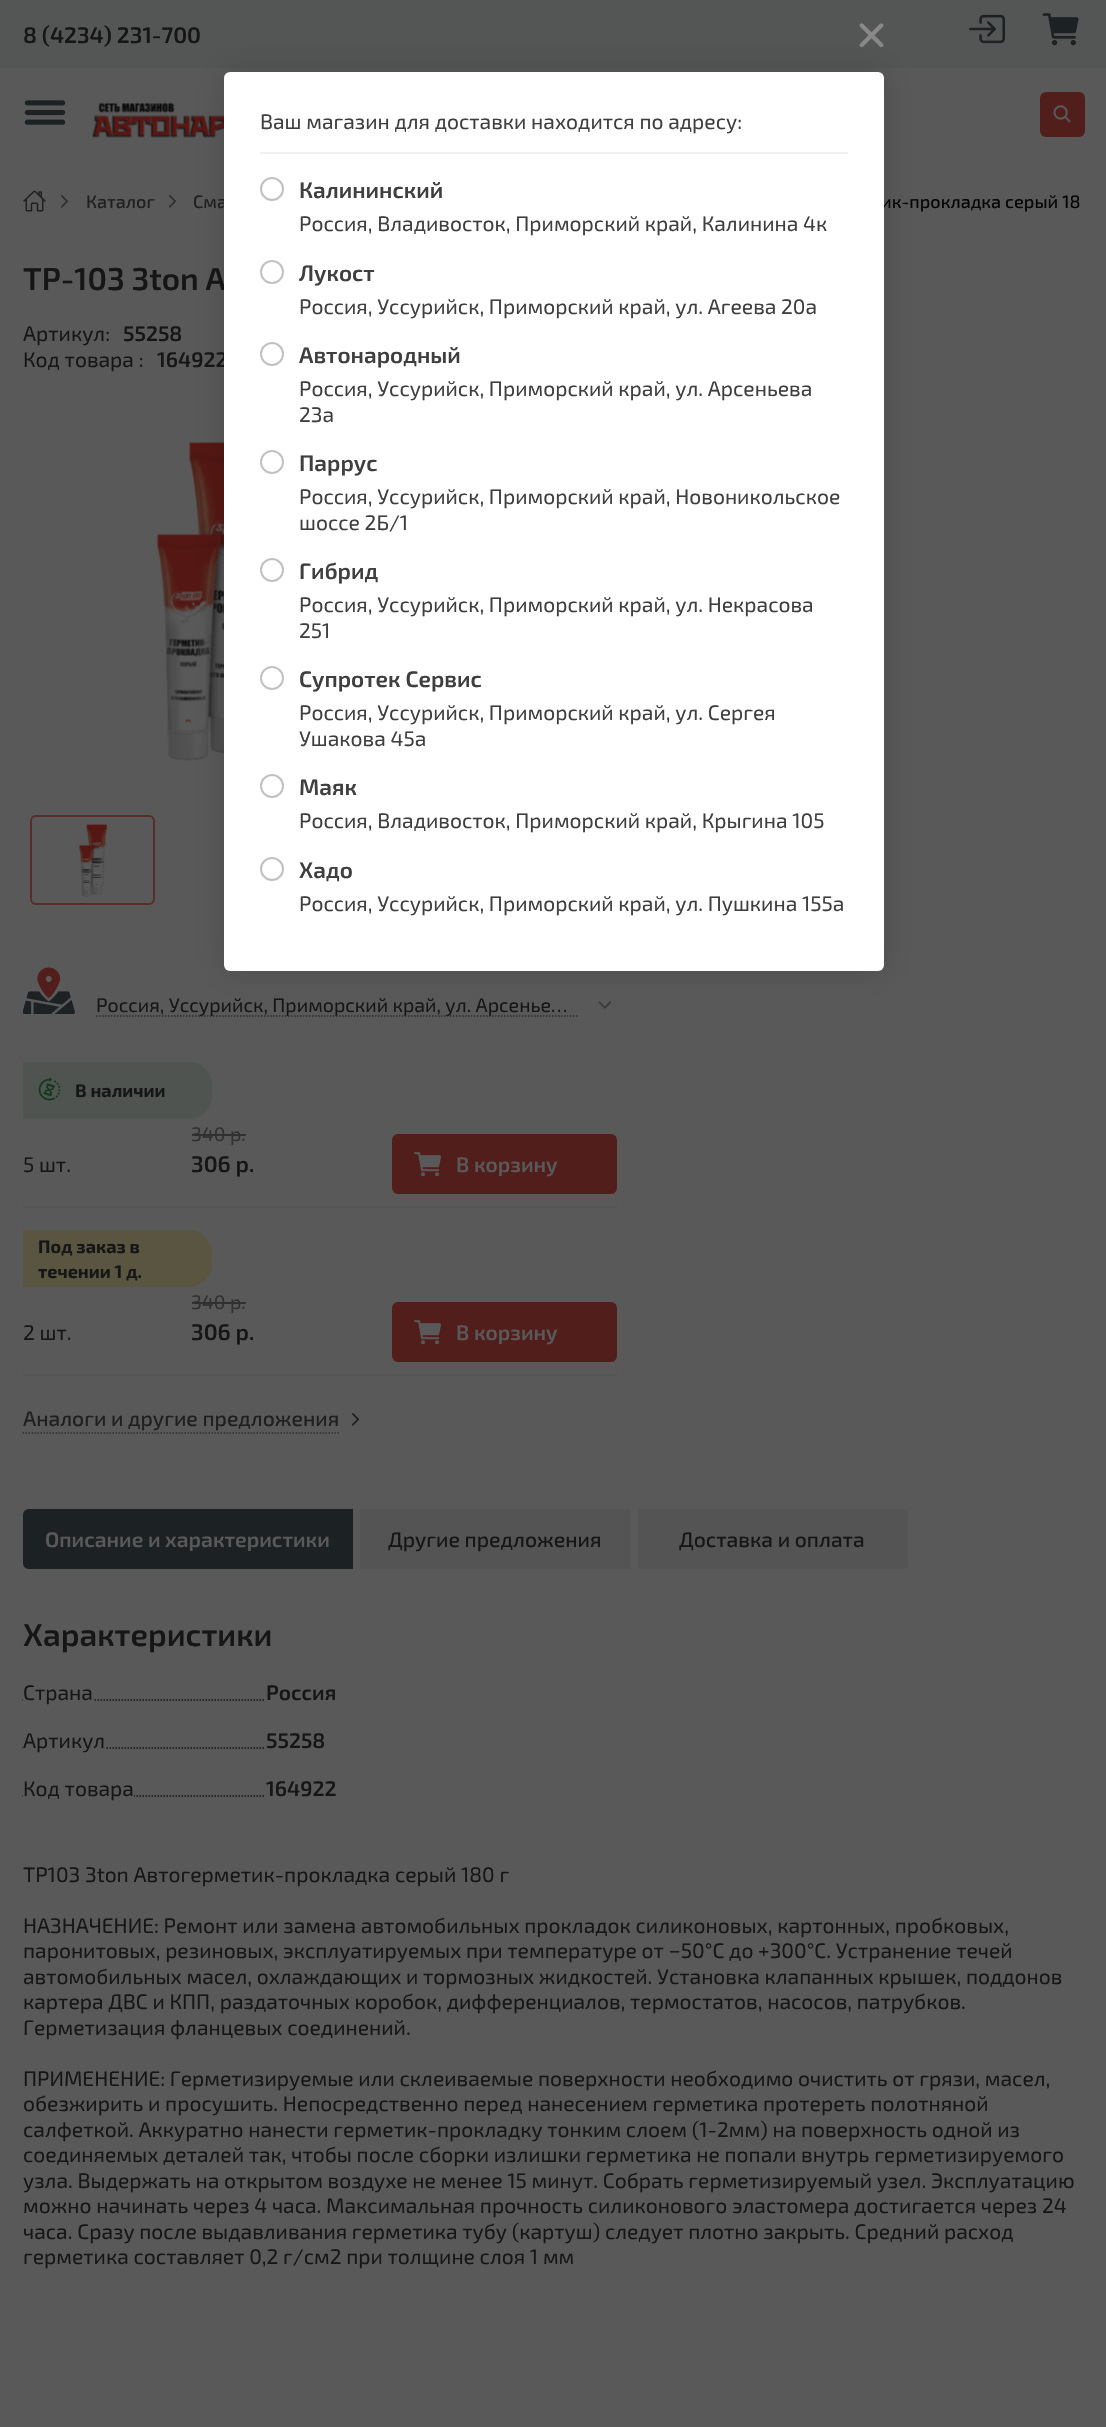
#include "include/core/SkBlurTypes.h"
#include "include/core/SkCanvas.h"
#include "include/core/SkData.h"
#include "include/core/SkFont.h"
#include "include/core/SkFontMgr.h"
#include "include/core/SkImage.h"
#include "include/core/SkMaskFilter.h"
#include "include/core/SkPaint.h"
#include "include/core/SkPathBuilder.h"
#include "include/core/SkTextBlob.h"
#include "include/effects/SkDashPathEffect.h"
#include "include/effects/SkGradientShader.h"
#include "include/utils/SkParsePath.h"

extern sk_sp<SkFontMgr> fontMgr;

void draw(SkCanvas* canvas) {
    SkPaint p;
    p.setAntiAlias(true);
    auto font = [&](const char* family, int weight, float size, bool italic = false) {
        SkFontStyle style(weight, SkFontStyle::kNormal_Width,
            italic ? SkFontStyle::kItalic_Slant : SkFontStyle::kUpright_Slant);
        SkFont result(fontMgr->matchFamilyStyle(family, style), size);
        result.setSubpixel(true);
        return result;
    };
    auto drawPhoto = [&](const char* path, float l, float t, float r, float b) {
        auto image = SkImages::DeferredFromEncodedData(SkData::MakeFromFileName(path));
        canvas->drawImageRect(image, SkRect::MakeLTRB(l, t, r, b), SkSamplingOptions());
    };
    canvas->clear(0xFF595959);
    drawPhoto("media/1.png", 24, 100, 66, 125);
    p.setColor(0xFF545555);
    canvas->drawRect(SkRect::MakeLTRB(0, 0, 1106, 68), p);
    drawPhoto("media/2.png", 969, 14, 1005, 44);
    drawPhoto("media/3.png", 1042, 13, 1079, 46);
    drawPhoto("media/4.png", 92, 102, 224, 138);
    p.setColor(0xFF511E1B);
    canvas->drawRoundRect(SkRect::MakeLTRB(1040, 92, 1085, 137), 6, 6, p);
    drawPhoto("media/5.png", 1053, 105, 1071, 123);
    auto font1 = font("Exo 2", 600, 22.5f);
    p.setColor(0xFF161616);
    canvas->drawString("8 (4234) 231-700", 23, 43, font1, p);
    drawPhoto("media/9.png", 156, 442, 224, 761);
    drawPhoto("media/12.png", 598, 1001, 612, 1009);
    auto font2 = font("Exo 2", 400, 19.5f);
    canvas->drawString("Россия, Уссурийск, Приморский край, ул. Арсенье…", 96, 1012, font2, p);
    p.setStyle(SkPaint::kStroke_Style);
    p.setStrokeWidth(1.5f);
    p.setColor(0xFF2B2B2B);
    p.setPathEffect(SkDashPathEffect::Make({{1.5f, 1.5f}}, 0));
    canvas->drawPath(SkPathBuilder().moveTo(96, 1016).lineTo(577.5f, 1016).detach(), p);
    p.setPathEffect(nullptr);
    p.setStyle(SkPaint::kFill_Style);
    p.setColor(0x26000000);
    p.setMaskFilter(SkMaskFilter::MakeBlur(kNormal_SkBlurStyle, 15));
    canvas->drawRoundRect(SkRect::MakeLTRB(224, 72, 884, 971), 6, 6, p);
    p.setMaskFilter(nullptr);
    auto font3 = font("Exo 2", 500, 18);
    p.setColor(0xFF1F1F1F);
    canvas->drawString("Сма", 193, 208, font3, p);
    p.setColor(0xFF060606);
    canvas->drawString("ик-прокладка серый 18", 881, 208, font3, p);
    auto font4 = font("Exo 2", 600, 31.5f);
    p.setColor(0xFF161616);
    canvas->drawString("TP-103 3ton А", 23, 290, font4, p);
    auto font5 = font("Exo 2", 600, 21);
    canvas->drawString("164922", 157, 367, font5, p);
    p.setColor(0xFFFFFFFF);
    canvas->drawRoundRect(SkRect::MakeLTRB(224, 72, 884, 971), 6, 6, p);
    drawPhoto("media/6.png", 859, 23, 884, 48);
    p.setColor(0xFFF0F0F0);
    canvas->drawRect(SkRect::MakeLTRB(260, 152, 848, 154), p);
    auto font6 = font("Exo 2", 400, 21);
    p.setColor(0xFF3F3F3F);
    canvas->drawString("Ваш магазин для доставки находится по адресу:", 260, 129, font6, p);
    p.setStyle(SkPaint::kStroke_Style);
    p.setStrokeWidth(2);
    p.setColor(0xFFC1C1C1);
    canvas->drawCircle(272, 189, 11, p);
    p.setStyle(SkPaint::kFill_Style);
    p.setColor(0xFF3F3F3F);
    canvas->drawString("Калининский", 299, 198, font1, p);
    canvas->drawString("Россия, Владивосток, Приморский край, Калинина 4к", 299, 231, font6, p);
    p.setStyle(SkPaint::kStroke_Style);
    p.setColor(0xFFC1C1C1);
    canvas->drawCircle(272, 272, 11, p);
    p.setStyle(SkPaint::kFill_Style);
    p.setColor(0xFF3F3F3F);
    canvas->drawString("Лукост", 299, 281, font1, p);
    canvas->drawString("Россия, Уссурийск, Приморский край, ул. Агеева 20а", 299, 314, font6, p);
    p.setStyle(SkPaint::kStroke_Style);
    p.setColor(0xFFC1C1C1);
    canvas->drawCircle(272, 354, 11, p);
    p.setStyle(SkPaint::kFill_Style);
    p.setColor(0xFF3F3F3F);
    canvas->drawString("Автонародный", 299, 363, font1, p);
    canvas->drawString("Россия, Уссурийск, Приморский край, ул. Арсеньева", 299, 396, font6, p);
    canvas->drawString("23а", 299, 422, font6, p);
    p.setStyle(SkPaint::kStroke_Style);
    p.setColor(0xFFC1C1C1);
    canvas->drawCircle(272, 462, 11, p);
    p.setStyle(SkPaint::kFill_Style);
    p.setColor(0xFF3F3F3F);
    canvas->drawString("Паррус", 299, 471, font1, p);
    canvas->drawString("Россия, Уссурийск, Приморский край, Новоникольское", 299, 504, font6, p);
    canvas->drawString("шоссе 2Б/1", 299, 530, font6, p);
    p.setStyle(SkPaint::kStroke_Style);
    p.setColor(0xFFC1C1C1);
    canvas->drawCircle(272, 570, 11, p);
    p.setStyle(SkPaint::kFill_Style);
    p.setColor(0xFF3F3F3F);
    canvas->drawString("Гибрид", 299, 579, font1, p);
    canvas->drawString("Россия, Уссурийск, Приморский край, ул. Некрасова", 299, 612, font6, p);
    canvas->drawString("251", 299, 638, font6, p);
    p.setStyle(SkPaint::kStroke_Style);
    p.setColor(0xFFC1C1C1);
    canvas->drawCircle(272, 678, 11, p);
    p.setStyle(SkPaint::kFill_Style);
    p.setColor(0xFF3F3F3F);
    canvas->drawString("Супротек Сервис", 299, 687, font1, p);
    canvas->drawString("Россия, Уссурийск, Приморский край, ул. Сергея", 299, 720, font6, p);
    canvas->drawString("Ушакова 45а", 299, 746, font6, p);
    p.setStyle(SkPaint::kStroke_Style);
    p.setColor(0xFFC1C1C1);
    canvas->drawCircle(272, 786, 11, p);
    p.setStyle(SkPaint::kFill_Style);
    p.setColor(0xFF3F3F3F);
    canvas->drawString("Маяк", 299, 795, font1, p);
    canvas->drawString("Россия, Владивосток, Приморский край, Крыгина 105", 299, 828, font6, p);
    p.setStyle(SkPaint::kStroke_Style);
    p.setColor(0xFFC1C1C1);
    canvas->drawCircle(272, 869, 11, p);
    p.setStyle(SkPaint::kFill_Style);
    p.setColor(0xFF3F3F3F);
    canvas->drawString("Хадо", 299, 878, font1, p);
    canvas->drawString("Россия, Уссурийск, Приморский край, ул. Пушкина 155а", 299, 911, font6, p);
    drawPhoto("media/7.png", 23, 190, 46, 212);
    drawPhoto("media/8.png", 60, 195, 69, 208);
    p.setColor(0xFF1F1F1F);
    canvas->drawString("Каталог", 86, 208, font3, p);
    drawPhoto("media/8.png", 168, 195, 177, 208);
    p.setColor(0xFF161616);
    canvas->drawString("Артикул:", 23, 341, font6, p);
    canvas->drawString("55258", 123, 341, font5, p);
    canvas->drawString("Код товара :", 23, 367, font6, p);
    p.setStyle(SkPaint::kStroke_Style);
    p.setColor(0xFF592C29);
    canvas->drawRoundRect(SkRect::MakeLTRB(31, 816, 154, 904), 5, 5, p);
    drawPhoto("media/10.png", 78, 824, 108, 897);
    drawPhoto("media/11.png", 23, 967, 75, 1014);
    p.setStyle(SkPaint::kFill_Style);
    p.setColor(0xFF545454);
    canvas->drawRect(SkRect::MakeLTRB(23, 1206, 617, 1208), p);
    p.setColor(0xFF4F5450);
    canvas->drawPath(SkPathBuilder().moveTo(23, 1062).lineTo(189, 1062).cubicTo(201.5f, 1062, 212, 1072.5f, 212, 1085).lineTo(212, 1096).cubicTo(212, 1108.5f, 201.5f, 1119, 189, 1119).lineTo(23, 1119).close().detach(), p);
    drawPhoto("media/13.png", 38, 1077, 61, 1101);
    auto font7 = font("Exo 2", 700, 18);
    p.setColor(0xFF161616);
    canvas->drawString("В наличии", 75, 1097, font7, p);
    canvas->drawString("5 шт.", 23, 1172, font6, p);
    p.setColor(0xFF303030);
    canvas->drawString("340 р.", 191, 1141, font2, p);
    canvas->drawRect(SkRect::MakeLTRB(192, 1134, 246, 1136), p);
    p.setColor(0xFF161616);
    canvas->drawString("306 р.", 191, 1172, font1, p);
    p.setColor(0xFF511E1B);
    canvas->drawRoundRect(SkRect::MakeLTRB(392, 1134, 617, 1194), 6, 6, p);
    drawPhoto("media/14.png", 414, 1152, 441, 1177);
    p.setColor(0xFF595959);
    canvas->drawString("В корзину", 456, 1172, font5, p);
    p.setColor(0xFF545454);
    canvas->drawRect(SkRect::MakeLTRB(23, 1374, 617, 1376), p);
    p.setColor(0xFF595541);
    canvas->drawPath(SkPathBuilder().moveTo(23, 1230).lineTo(189, 1230).cubicTo(201.5f, 1230, 212, 1240.5f, 212, 1253).lineTo(212, 1264).cubicTo(212, 1276.5f, 201.5f, 1287, 189, 1287).lineTo(23, 1287).close().detach(), p);
    p.setColor(0xFF161616);
    canvas->drawString("Под заказ в", 38, 1253, font7, p);
    canvas->drawString("течении 1 д.", 38, 1278, font7, p);
    canvas->drawString("2 шт.", 23, 1340, font6, p);
    p.setColor(0xFF303030);
    canvas->drawString("340 р.", 191, 1309, font2, p);
    canvas->drawRect(SkRect::MakeLTRB(192, 1302, 246, 1304), p);
    p.setColor(0xFF161616);
    canvas->drawString("306 р.", 191, 1340, font1, p);
    p.setColor(0xFF511E1B);
    canvas->drawRoundRect(SkRect::MakeLTRB(392, 1302, 617, 1362), 6, 6, p);
    drawPhoto("media/14.png", 414, 1320, 441, 1345);
    p.setColor(0xFF595959);
    canvas->drawString("В корзину", 456, 1340, font5, p);
    p.setStyle(SkPaint::kStroke_Style);
    p.setStrokeWidth(1.5f);
    p.setColor(0xFF303030);
    p.setPathEffect(SkDashPathEffect::Make({{1.5f, 1.5f}}, 0));
    canvas->drawPath(SkPathBuilder().moveTo(22.5f, 1433).lineTo(339, 1433).detach(), p);
    p.setPathEffect(nullptr);
    auto font8 = font("Exo 2", 500, 21);
    p.setStyle(SkPaint::kFill_Style);
    p.setColor(0xFF1F1F1F);
    canvas->drawString("Аналоги и другие предложения", 23, 1426, font8, p);
    drawPhoto("media/15.png", 351, 1413, 360, 1426);
    p.setColor(0xFF1C2124);
    canvas->drawPath(SkPathBuilder().moveTo(29, 1509).lineTo(353, 1509).lineTo(353, 1569).lineTo(29, 1569).cubicTo(25.5f, 1569, 23, 1566.5f, 23, 1563).lineTo(23, 1515).cubicTo(23, 1511.5f, 25.5f, 1509, 29, 1509).close().detach(), p);
    p.setColor(0xFF595959);
    canvas->drawString("Описание и характеристики", 45, 1547, font5, p);
    p.setColor(0xFF545454);
    canvas->drawRect(SkRect::MakeLTRB(360, 1509, 630, 1569), p);
    p.setColor(0xFF161616);
    canvas->drawString("Другие предложения", 388, 1547, font8, p);
    p.setColor(0xFF545454);
    canvas->drawPath(SkPathBuilder().moveTo(638, 1509).lineTo(902, 1509).cubicTo(905.5f, 1509, 908, 1511.5f, 908, 1515).lineTo(908, 1563).cubicTo(908, 1566.5f, 905.5f, 1569, 902, 1569).lineTo(638, 1569).close().detach(), p);
    p.setColor(0xFF161616);
    canvas->drawString("Доставка и оплата", 679, 1547, font8, p);
    canvas->drawString("Характеристики", 23, 1646, font4, p);
    p.setStyle(SkPaint::kStroke_Style);
    p.setPathEffect(SkDashPathEffect::Make({{1.5f, 1.5f}}, 0));
    canvas->drawPath(SkPathBuilder().moveTo(22.5f, 1700).lineTo(265.5f, 1700).detach(), p);
    p.setPathEffect(nullptr);
    p.setStyle(SkPaint::kFill_Style);
    p.setColor(0xFF595959);
    canvas->drawRect(SkRect::MakeLTRB(23, 1699, 93, 1701), p);
    p.setColor(0xFF161616);
    canvas->drawString("Страна", 23, 1700, font6, p);
    canvas->drawString("Россия", 266, 1700, font5, p);
    p.setStyle(SkPaint::kStroke_Style);
    p.setPathEffect(SkDashPathEffect::Make({{1.5f, 1.5f}}, 0));
    canvas->drawPath(SkPathBuilder().moveTo(22.5f, 1748).lineTo(265.5f, 1748).detach(), p);
    p.setPathEffect(nullptr);
    p.setStyle(SkPaint::kFill_Style);
    p.setColor(0xFF595959);
    canvas->drawRect(SkRect::MakeLTRB(23, 1747, 105, 1749), p);
    p.setColor(0xFF161616);
    canvas->drawString("Артикул", 23, 1748, font6, p);
    canvas->drawString("55258", 266, 1748, font5, p);
    p.setStyle(SkPaint::kStroke_Style);
    p.setPathEffect(SkDashPathEffect::Make({{1.5f, 1.5f}}, 0));
    canvas->drawPath(SkPathBuilder().moveTo(22.5f, 1796).lineTo(265.5f, 1796).detach(), p);
    p.setPathEffect(nullptr);
    p.setStyle(SkPaint::kFill_Style);
    p.setColor(0xFF595959);
    canvas->drawRect(SkRect::MakeLTRB(23, 1795, 134, 1797), p);
    p.setColor(0xFF161616);
    canvas->drawString("Код товара", 23, 1796, font6, p);
    canvas->drawString("164922", 266, 1796, font5, p);
    {
        const struct { const char* s; float x, y; } items[] = {
            {"TP103 3ton Автогерметик-прокладка серый 180 г", 23, 1882},
            {"НАЗНАЧЕНИЕ: Ремонт или замена автомобильных прокладок силиконовых, картонных, пробковых,", 23, 1933},
            {"паронитовых, резиновых, эксплуатируемых при температуре от −50°С до +300°С. Устранение течей", 23, 1958},
            {"автомобильных масел, охлаждающих и тормозных жидкостей. Установка клапанных крышек, поддонов", 23, 1984},
            {"картера ДВС и КПП, раздаточных коробок, дифференциалов, термостатов, насосов, патрубков.", 23, 2009},
            {"Герметизация фланцевых соединений.", 23, 2035},
            {"ПРИМЕНЕНИЕ: Герметизируемые или склеиваемые поверхности необходимо очистить от грязи, масел,", 23, 2086},
            {"обезжирить и просушить. Непосредственно перед нанесением герметика протереть полотняной", 23, 2111},
            {"салфеткой. Аккуратно нанести герметик-прокладку тонким слоем (1-2мм) на поверхность одной из", 23, 2137},
            {"соединяемых деталей так, чтобы после сборки излишки герметика не попали внутрь герметизируемого", 23, 2162},
            {"узла. Выдержать на открытом воздухе не менее 15 минут. Собрать герметизируемый узел. Эксплуатацию", 23, 2188},
            {"можно начинать через 4 часа. Максимальная прочность силиконового эластомера достигается через 24", 23, 2213},
            {"часа. Сразу после выдавливания герметика тубу (картуш) следует плотно закрыть. Средний расход", 23, 2239},
            {"герметика составляет 0,2 г/см2 при толщине слоя 1 мм", 23, 2264},
        };
        for (auto [s, x, y] : items) {
            canvas->drawString(s, x, y, font6, p);
        }
    }
}
